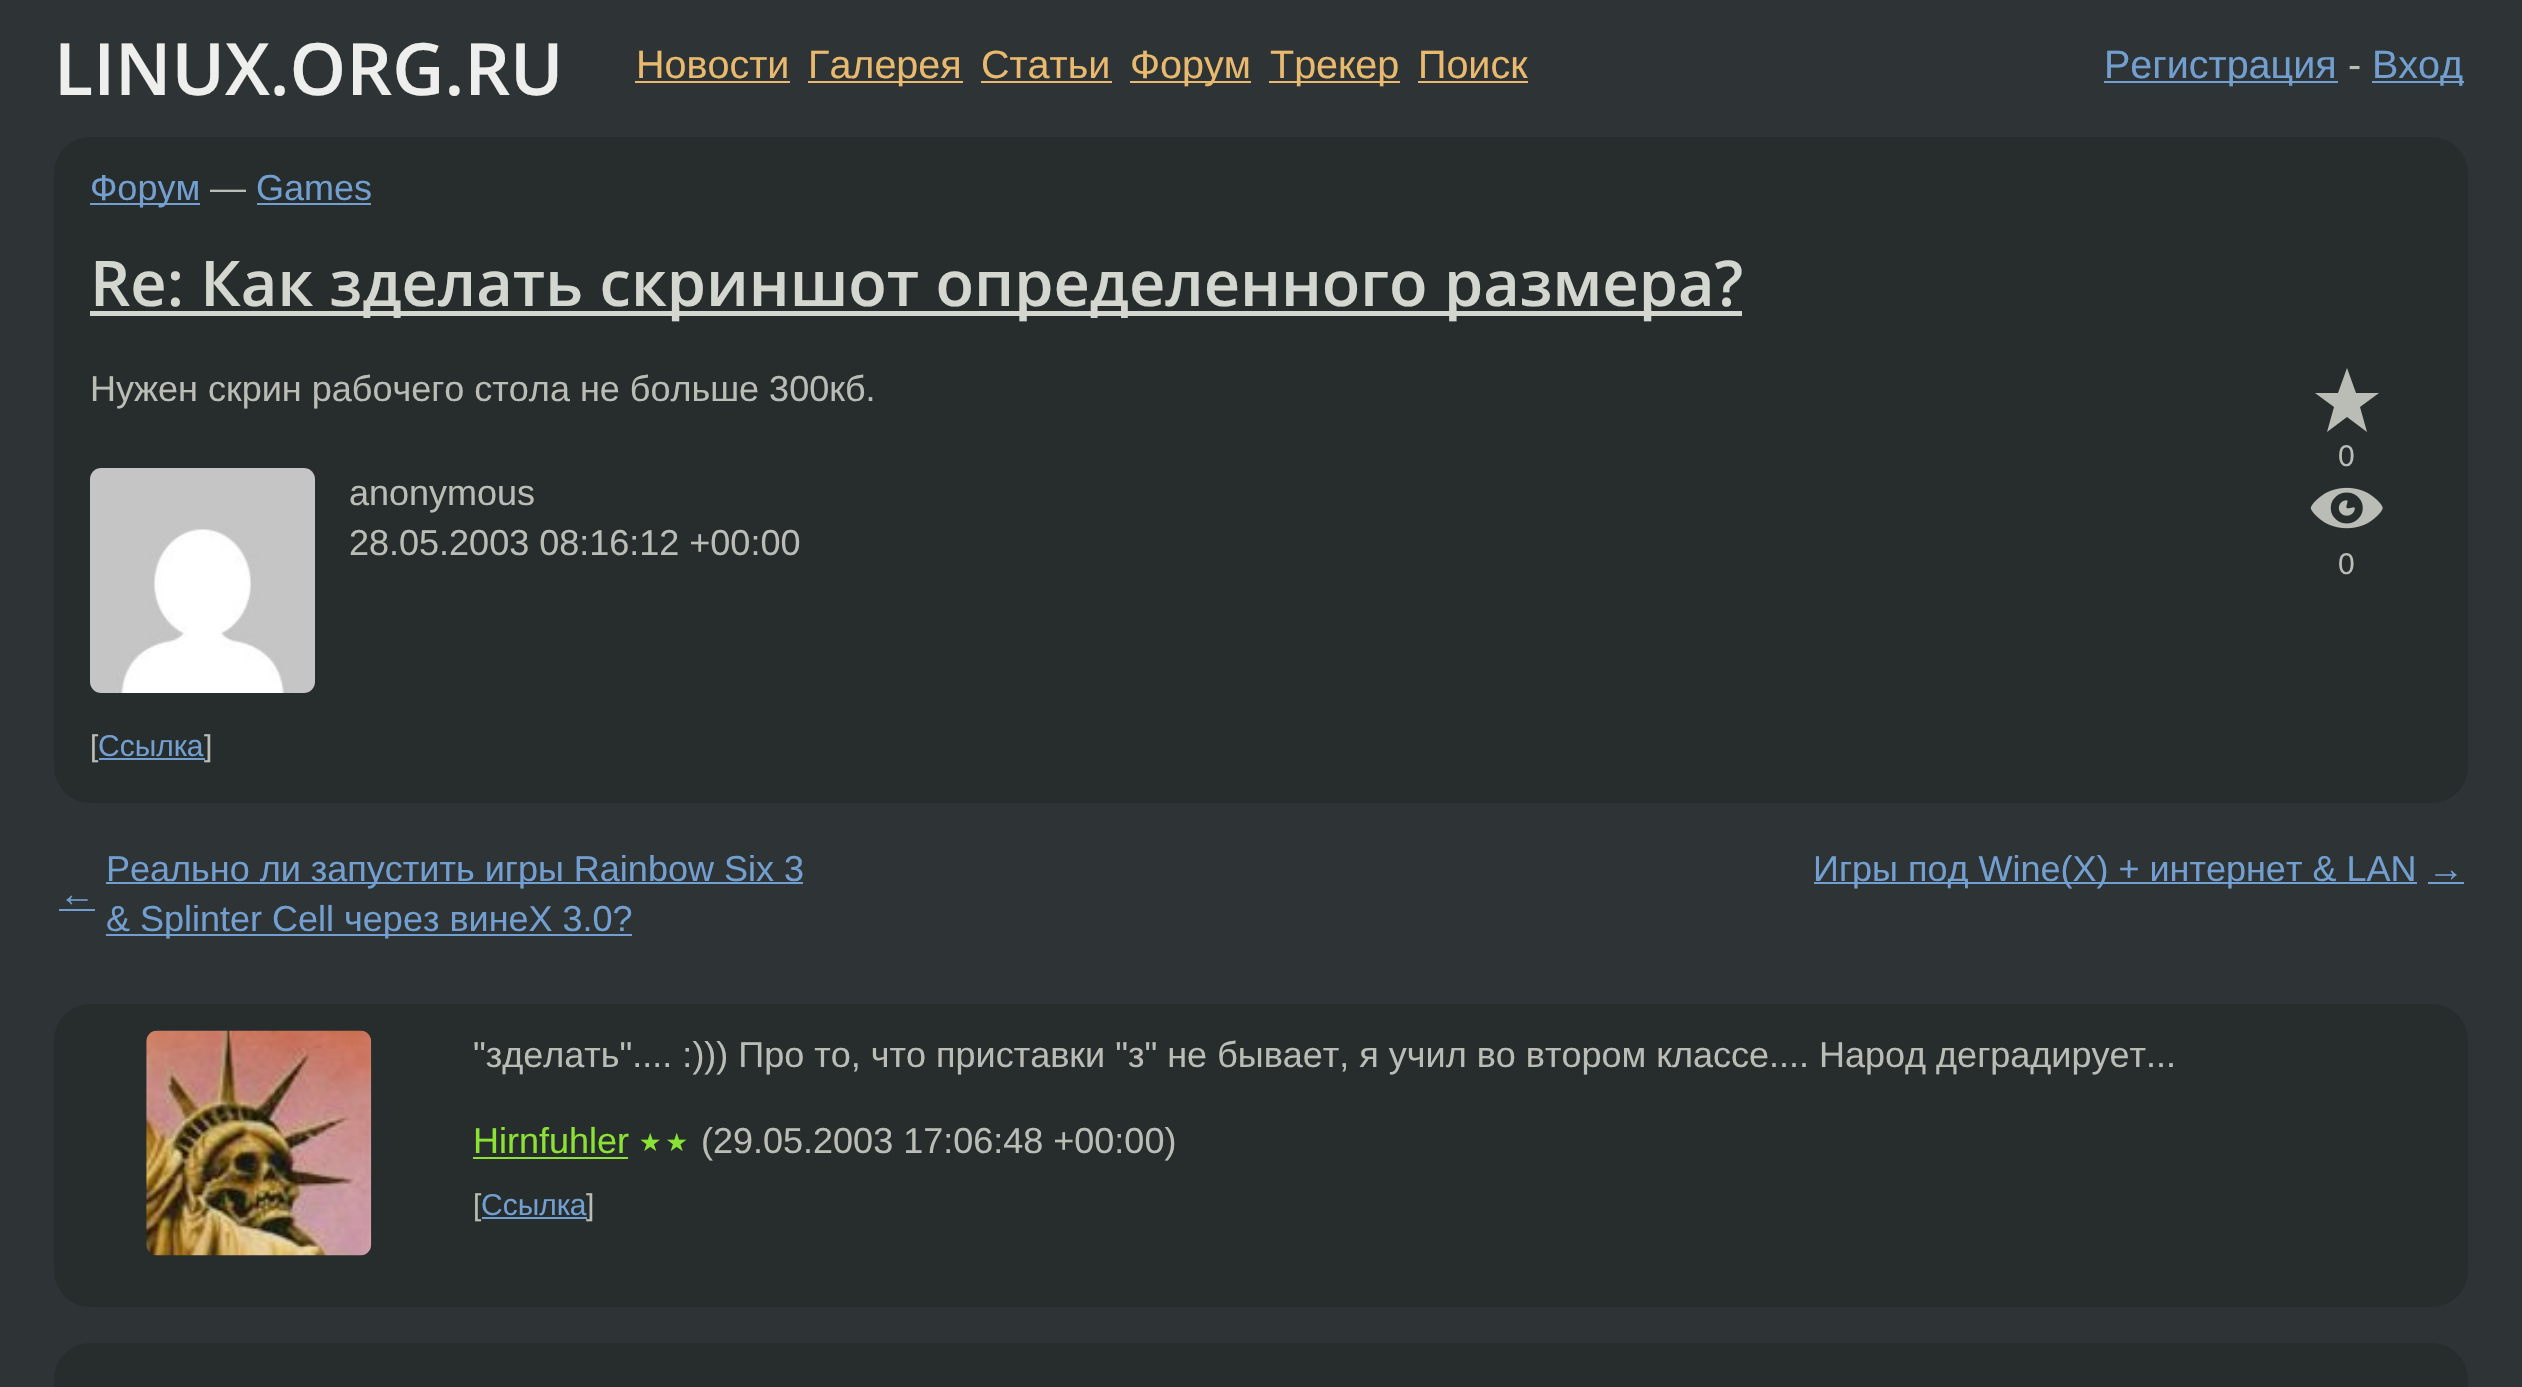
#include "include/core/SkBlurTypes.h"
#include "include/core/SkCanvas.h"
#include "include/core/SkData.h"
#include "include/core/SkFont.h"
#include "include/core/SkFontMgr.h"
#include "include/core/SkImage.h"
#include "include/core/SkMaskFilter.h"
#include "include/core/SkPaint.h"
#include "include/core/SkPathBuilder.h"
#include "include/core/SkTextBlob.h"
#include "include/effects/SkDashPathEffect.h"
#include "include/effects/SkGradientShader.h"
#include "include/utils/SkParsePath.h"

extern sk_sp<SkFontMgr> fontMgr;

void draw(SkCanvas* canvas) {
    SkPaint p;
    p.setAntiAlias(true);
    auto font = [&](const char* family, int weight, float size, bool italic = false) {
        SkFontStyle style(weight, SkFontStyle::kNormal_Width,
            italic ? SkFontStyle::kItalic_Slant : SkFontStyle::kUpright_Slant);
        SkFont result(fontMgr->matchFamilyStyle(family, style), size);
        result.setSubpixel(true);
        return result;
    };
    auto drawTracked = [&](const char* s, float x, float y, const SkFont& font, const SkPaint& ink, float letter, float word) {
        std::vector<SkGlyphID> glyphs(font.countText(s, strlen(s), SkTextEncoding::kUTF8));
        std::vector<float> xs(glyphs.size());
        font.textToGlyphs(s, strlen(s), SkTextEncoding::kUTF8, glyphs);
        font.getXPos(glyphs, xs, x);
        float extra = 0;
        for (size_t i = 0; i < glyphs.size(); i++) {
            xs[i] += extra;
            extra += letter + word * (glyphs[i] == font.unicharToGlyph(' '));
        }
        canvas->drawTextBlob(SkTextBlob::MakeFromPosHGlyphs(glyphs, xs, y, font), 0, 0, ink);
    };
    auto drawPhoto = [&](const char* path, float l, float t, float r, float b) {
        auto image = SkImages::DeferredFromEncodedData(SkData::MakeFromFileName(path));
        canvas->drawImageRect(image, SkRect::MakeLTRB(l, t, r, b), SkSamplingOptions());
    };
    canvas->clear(0xFF2E3436);
    auto font1 = font("Open Sans", 600, 72);
    p.setColor(0xFFEEEEEC);
    canvas->drawString("LINUX.ORG.RU", 54, 95, font1, p);
    auto font2 = font("Liberation Sans", 400, 39.5f);
    p.setColor(0xFFE9B96E);
    canvas->drawString("Новости", 636, 78, font2, p);
    canvas->drawRect(SkRect::MakeLTRB(635, 81, 790, 83), p);
    canvas->drawRect(SkRect::MakeLTRB(808, 81, 963, 83), p);
    canvas->drawString("Галерея", 808, 78, font2, p);
    canvas->drawString("Статьи", 981, 78, font2, p);
    canvas->drawRect(SkRect::MakeLTRB(981, 81, 1112, 83), p);
    canvas->drawRect(SkRect::MakeLTRB(1130, 81, 1251, 83), p);
    canvas->drawString("Форум", 1130, 78, font2, p);
    canvas->drawRect(SkRect::MakeLTRB(1269, 81, 1400, 83), p);
    canvas->drawString("Трекер", 1270, 78, font2, p);
    canvas->drawString("Поиск", 1418, 78, font2, p);
    canvas->drawRect(SkRect::MakeLTRB(1418, 81, 1528, 83), p);
    p.setColor(0xFF729FCF);
    canvas->drawRect(SkRect::MakeLTRB(2104, 81, 2338, 83), p);
    canvas->drawString("Регистрация", 2104, 78, font2, p);
    p.setColor(0xFFBABDB6);
    canvas->drawString("-", 2348, 78, font2, p);
    p.setColor(0xFF729FCF);
    canvas->drawRect(SkRect::MakeLTRB(2372, 81, 2464, 83), p);
    canvas->drawString("Вход", 2372, 78, font2, p);
    p.setColor(0xFF272C2D);
    canvas->drawRoundRect(SkRect::MakeLTRB(54, 137, 2468, 803), 36, 36, p);
    p.setColor(0xFF729FCF);
    canvas->drawRect(SkRect::MakeLTRB(90, 203, 200, 205), p);
    auto font3 = font("Liberation Sans", 400, 36);
    canvas->drawString("Форум", 90, 200, font3, p);
    p.setColor(0xFFBABDB6);
    canvas->drawString("—", 210, 200, font3, p);
    p.setColor(0xFF729FCF);
    canvas->drawString("Games", 256, 200, font3, p);
    canvas->drawRect(SkRect::MakeLTRB(257, 203, 371, 205), p);
    p.setColor(0xFFD3D7CF);
    canvas->drawRect(SkRect::MakeLTRB(90, 311, 1742, 316), p);
    auto font4 = font("Open Sans", 600, 63.1f);
    canvas->drawString("Re: Как зделать скриншот определенного размера?", 90, 306, font4, p);
    p.setColor(0xFFBABDB6);
    canvas->drawString("Нужен скрин рабочего стола не больше 300кб.", 90, 401, font3, p);
    drawPhoto("media/1.png", 90, 468, 315, 693);
    canvas->drawString("anonymous", 349, 505, font3, p);
    canvas->drawString("28.05.2003 08:16:12 +00:00", 349, 555, font3, p);
    canvas->drawPath(SkPathBuilder().moveTo(2347, 368).lineTo(2356, 393).lineTo(2379, 393).lineTo(2360, 407).lineTo(2367, 432).lineTo(2347, 417).lineTo(2327, 432).lineTo(2334, 407).lineTo(2315, 393).lineTo(2338, 393).close().detach(), p);
    auto font5 = font("Liberation Sans", 400, 30);
    canvas->drawString("0", 2338, 466, font5, p);
    drawPhoto("media/2.png", 2310, 487, 2383, 529);
    canvas->drawString("0", 2338, 574, font5, p);
    canvas->drawString("[", 90, 756, font5, p);
    p.setColor(0xFF729FCF);
    canvas->drawRect(SkRect::MakeLTRB(99, 758, 205, 760), p);
    canvas->drawString("Ссылка", 98, 756, font5, p);
    p.setColor(0xFFBABDB6);
    canvas->drawString("]", 204, 756, font5, p);
    p.setColor(0xFF729FCF);
    canvas->drawString("←", 59, 906, font3, p);
    canvas->drawRect(SkRect::MakeLTRB(59, 909, 95, 911), p);
    canvas->drawRect(SkRect::MakeLTRB(106, 882, 803, 884), p);
    canvas->drawString("Реально ли запустить игры Rainbow Six 3", 106, 881, font3, p);
    canvas->drawRect(SkRect::MakeLTRB(106, 934, 632, 936), p);
    canvas->drawString("& Splinter Cell через винеХ 3.0?", 106, 931, font3, p);
    canvas->drawRect(SkRect::MakeLTRB(1814, 882, 2417, 884), p);
    canvas->drawString("Игры под Wine(X) + интернет & LAN", 1813, 881, font3, p);
    canvas->drawString("→", 2428, 881, font3, p);
    canvas->drawRect(SkRect::MakeLTRB(2428, 882, 2464, 884), p);
    p.setColor(0xFF272C2D);
    canvas->drawRoundRect(SkRect::MakeLTRB(54, 1004, 2468, 1307), 36, 36, p);
    drawPhoto("media/3.png", 146, 1030, 372, 1256);
    p.setColor(0xFFBABDB6);
    canvas->drawString("\"зделать\".... :))) Про то, что приставки \"з\" не бывает, я учил во втором классе.... Народ деградирует...", 473, 1067, font3, p);
    p.setColor(0xFF8AE234);
    canvas->drawString("Hirnfuhler", 473, 1153, font3, p);
    canvas->drawRect(SkRect::MakeLTRB(473, 1157, 628, 1159), p);
    auto font6 = font("DejaVu Sans", 400, 25);
    drawTracked("★★", 639, 1151, font6, p, 4, 0);
    p.setColor(0xFFBABDB6);
    canvas->drawString("(29.05.2003 17:06:48 +00:00)", 701, 1153, font3, p);
    canvas->drawString("[", 473, 1215, font5, p);
    p.setColor(0xFF729FCF);
    canvas->drawString("Ссылка", 481, 1215, font5, p);
    canvas->drawRect(SkRect::MakeLTRB(482, 1217, 587, 1219), p);
    p.setColor(0xFFBABDB6);
    canvas->drawString("]", 586, 1215, font5, p);
    p.setColor(0xFF272C2D);
    canvas->drawRoundRect(SkRect::MakeLTRB(54, 1343, 2468, 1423), 36, 36, p);
}
